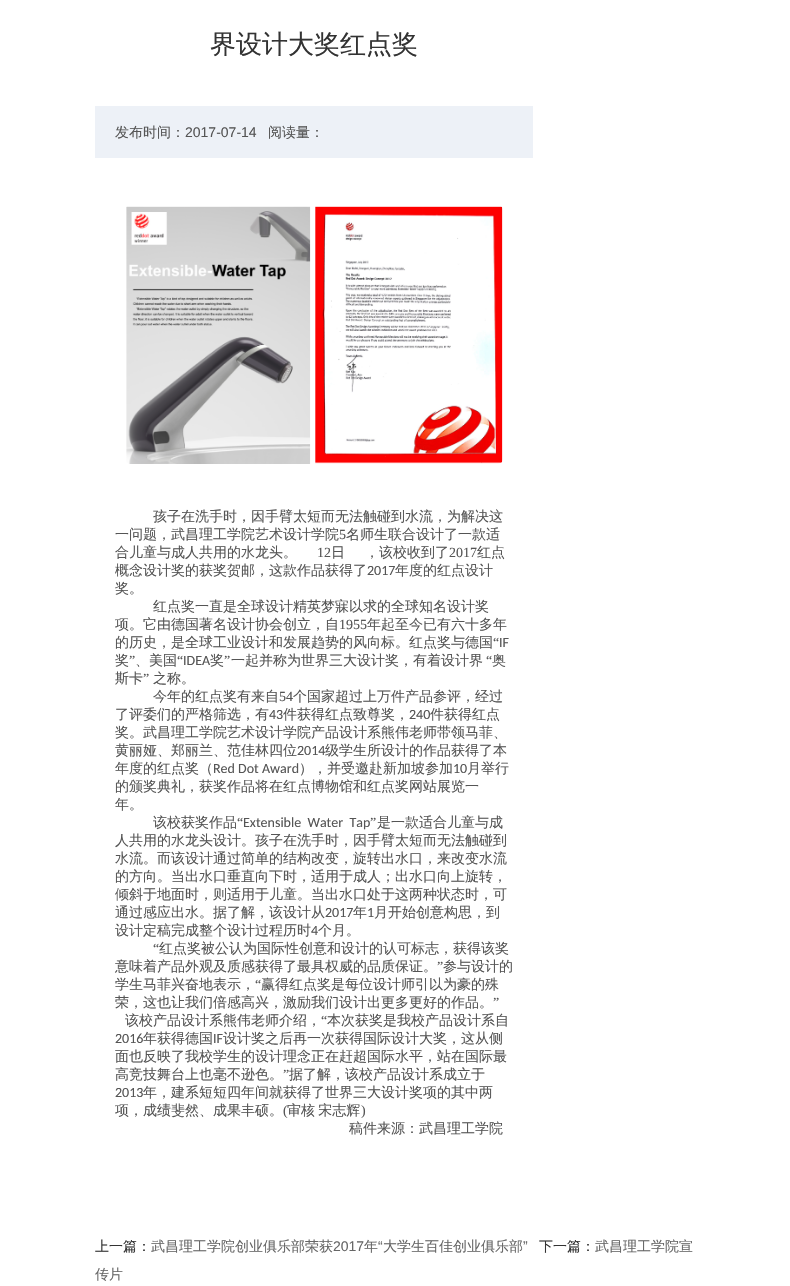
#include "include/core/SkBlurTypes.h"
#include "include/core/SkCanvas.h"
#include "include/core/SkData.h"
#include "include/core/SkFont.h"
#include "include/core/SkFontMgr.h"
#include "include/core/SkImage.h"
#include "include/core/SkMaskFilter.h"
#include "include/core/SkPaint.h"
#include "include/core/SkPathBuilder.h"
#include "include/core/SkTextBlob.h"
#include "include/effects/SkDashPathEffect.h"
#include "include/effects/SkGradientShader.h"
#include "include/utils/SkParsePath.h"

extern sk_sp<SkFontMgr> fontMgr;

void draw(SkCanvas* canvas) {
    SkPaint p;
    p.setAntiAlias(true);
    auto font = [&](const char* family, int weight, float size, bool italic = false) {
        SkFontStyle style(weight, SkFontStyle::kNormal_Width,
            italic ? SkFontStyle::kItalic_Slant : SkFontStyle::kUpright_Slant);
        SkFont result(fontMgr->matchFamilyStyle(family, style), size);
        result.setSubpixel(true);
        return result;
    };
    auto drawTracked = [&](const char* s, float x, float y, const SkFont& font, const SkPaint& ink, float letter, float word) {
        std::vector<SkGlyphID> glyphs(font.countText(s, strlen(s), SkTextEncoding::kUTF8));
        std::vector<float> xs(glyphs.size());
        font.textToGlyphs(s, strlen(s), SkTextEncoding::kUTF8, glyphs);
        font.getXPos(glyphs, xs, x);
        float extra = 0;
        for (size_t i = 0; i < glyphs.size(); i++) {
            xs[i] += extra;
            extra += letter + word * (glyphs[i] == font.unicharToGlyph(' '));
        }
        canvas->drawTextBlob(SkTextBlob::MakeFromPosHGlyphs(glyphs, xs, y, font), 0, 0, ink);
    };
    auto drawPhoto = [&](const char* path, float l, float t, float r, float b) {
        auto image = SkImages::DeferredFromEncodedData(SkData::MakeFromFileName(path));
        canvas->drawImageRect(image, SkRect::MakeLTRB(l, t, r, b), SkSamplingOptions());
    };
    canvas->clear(0xFFFFFFFF);
    auto font1 = font("WenQuanYi Zen Hei", 500, 26);
    p.setColor(0xFF333333);
    canvas->drawString("界设计大奖红点奖", 210, 53, font1, p);
    p.setColor(0xFFEDF1F7);
    canvas->drawRect(SkRect::MakeLTRB(95, 106, 533, 158), p);
    auto font2 = font("WenQuanYi Zen Hei", 500, 14);
    p.setColor(0xFF555555);
    canvas->drawString("发布时间：", 115, 137, font2, p);
    auto font3 = font("Liberation Sans", 400, 14);
    canvas->drawString("2017-07-14", 185, 137, font3, p);
    canvas->drawString("阅读量：", 268, 137, font2, p);
    drawPhoto("media/1.png", 126, 206, 503, 464);
    canvas->drawString("孩子在洗手时，因手臂太短而无法触碰到水流，为解决这", 153, 521, font2, p);
    canvas->drawString("一问题，武昌理工学院艺术设计学院", 115, 539, font2, p);
    auto font4 = font("Liberation Serif", 400, 14);
    canvas->drawString("5", 339, 539, font4, p);
    canvas->drawString("名师生联合设计了一款适", 346, 539, font2, p);
    canvas->drawString("合儿童与成人共用的水龙头。", 115, 557, font2, p);
    canvas->drawString("12", 317, 557, font4, p);
    canvas->drawString("日", 331, 557, font2, p);
    canvas->drawString("，该校收到了", 365, 557, font2, p);
    canvas->drawString("2017", 449, 557, font4, p);
    canvas->drawString("红点", 477, 557, font2, p);
    canvas->drawString("概念设计奖的获奖贺邮，这款作品获得了", 115, 575, font2, p);
    auto font5 = font("Carlito", 400, 14);
    canvas->drawString("2017", 367, 575, font5, p);
    {
        const struct { const char* s; float x, y; } items[] = {
            {"年度的红点设计", 395, 575},
            {"奖。", 115, 593},
            {"红点奖一直是全球设计精英梦寐以求的全球知名设计奖", 153, 611},
            {"项。它由德国著名设计协会创立，自", 115, 629},
        };
        for (auto [s, x, y] : items) {
            canvas->drawString(s, x, y, font2, p);
        }
    }
    canvas->drawString("1955", 339, 629, font4, p);
    canvas->drawString("年起至今已有六十多年", 367, 629, font2, p);
    canvas->drawString("的历史，是全球工业设计和发展趋势的风向标。红点奖与德国", 115, 647, font2, p);
    canvas->drawString("“", 493, 647, font4, p);
    canvas->drawString("IF", 499, 647, font5, p);
    canvas->drawString("奖", 115, 665, font2, p);
    canvas->drawString("”", 129, 665, font4, p);
    canvas->drawString("、美国", 135, 665, font2, p);
    canvas->drawString("“", 177, 665, font4, p);
    canvas->drawString("IDEA", 183, 665, font5, p);
    canvas->drawString("奖", 210, 665, font2, p);
    canvas->drawString("”", 224, 665, font4, p);
    canvas->drawString("一起并称为世界三大设计奖，有着设计界", 231, 665, font2, p);
    canvas->drawString("“", 486, 665, font4, p);
    canvas->drawString("奥", 492, 665, font2, p);
    canvas->drawString("斯卡", 115, 683, font2, p);
    canvas->drawString("”", 143, 683, font4, p);
    canvas->drawString("之称。", 153, 683, font2, p);
    canvas->drawString("今年的红点奖有来自", 153, 701, font2, p);
    canvas->drawString("54", 279, 701, font4, p);
    canvas->drawString("个国家超过上万件产品参评，经过", 293, 701, font2, p);
    canvas->drawString("了评委们的严格筛选，有", 115, 719, font2, p);
    canvas->drawString("43", 269, 719, font5, p);
    canvas->drawString("件获得红点致尊奖，", 283, 719, font2, p);
    canvas->drawString("240", 409, 719, font5, p);
    {
        const struct { const char* s; float x, y; } items[] = {
            {"件获得红点", 430, 719},
            {"奖。武昌理工学院艺术设计学院产品设计系熊伟老师带领马菲、", 115, 737},
            {"黄丽娅、郑丽兰、范佳林四位", 115, 755},
        };
        for (auto [s, x, y] : items) {
            canvas->drawString(s, x, y, font2, p);
        }
    }
    canvas->drawString("2014", 297, 755, font5, p);
    canvas->drawString("级学生所设计的作品获得了本", 325, 755, font2, p);
    canvas->drawString("年度的红点奖（", 115, 773, font2, p);
    canvas->drawString("Red Dot Award", 213, 773, font5, p);
    canvas->drawString("），并受邀赴新加坡参加", 299, 773, font2, p);
    canvas->drawString("10", 453, 773, font5, p);
    {
        const struct { const char* s; float x, y; } items[] = {
            {"月举行", 467, 773},
            {"的颁奖典礼，获奖作品将在红点博物馆和红点奖网站展览一", 115, 791},
            {"年。", 115, 809},
            {"该校获奖作品", 153, 827},
        };
        for (auto [s, x, y] : items) {
            canvas->drawString(s, x, y, font2, p);
        }
    }
    canvas->drawString("“", 237, 827, font4, p);
    canvas->drawString("Extensible  Water  Tap", 243, 827, font5, p);
    canvas->drawString("”", 370, 827, font4, p);
    {
        const struct { const char* s; float x, y; } items[] = {
            {"是一款适合儿童与成", 377, 827},
            {"人共用的水龙头设计。孩子在洗手时，因手臂太短而无法触碰到", 115, 845},
            {"水流。而该设计通过简单的结构改变，旋转出水口，来改变水流", 115, 863},
            {"的方向。当出水口垂直向下时，适用于成人；出水口向上旋转，", 115, 881},
            {"倾斜于地面时，则适用于儿童。当出水口处于这两种状态时，可", 115, 899},
            {"通过感应出水。据了解，该设计从", 115, 917},
        };
        for (auto [s, x, y] : items) {
            canvas->drawString(s, x, y, font2, p);
        }
    }
    canvas->drawString("2017", 325, 917, font5, p);
    canvas->drawString("年", 353, 917, font2, p);
    canvas->drawString("1", 367, 917, font5, p);
    canvas->drawString("月开始创意构思，到", 374, 917, font2, p);
    canvas->drawString("设计定稿完成整个设计过程历时", 115, 935, font2, p);
    canvas->drawString("4", 311, 935, font5, p);
    canvas->drawString("个月。", 318, 935, font2, p);
    canvas->drawString("“", 153, 953, font4, p);
    canvas->drawString("红点奖被公认为国际性创意和设计的认可标志，获得该奖", 159, 953, font2, p);
    canvas->drawString("意味着产品外观及质感获得了最具权威的品质保证。", 115, 971, font2, p);
    canvas->drawString("”", 437, 971, font4, p);
    canvas->drawString("参与设计的", 443, 971, font2, p);
    canvas->drawString("学生马菲兴奋地表示，", 115, 989, font2, p);
    canvas->drawString("“", 255, 989, font4, p);
    canvas->drawString("赢得红点奖是每位设计师引以为豪的殊", 261, 989, font2, p);
    canvas->drawString("荣，这也让我们倍感高兴，激励我们设计出更多更好的作品。", 115, 1007, font2, p);
    canvas->drawString("”", 493, 1007, font4, p);
    canvas->drawString("该校产品设计系熊伟老师介绍，", 125, 1025, font2, p);
    canvas->drawString("“", 321, 1025, font4, p);
    canvas->drawString("本次获奖是我校产品设计系自", 327, 1025, font2, p);
    canvas->drawString("2016", 115, 1043, font5, p);
    canvas->drawString("年获得德国", 143, 1043, font2, p);
    canvas->drawString("IF", 213, 1043, font5, p);
    {
        const struct { const char* s; float x, y; } items[] = {
            {"设计奖之后再一次获得国际设计大奖，这从侧", 223, 1043},
            {"面也反映了我校学生的设计理念正在赶超国际水平，站在国际最", 115, 1061},
            {"高竞技舞台上也毫不逊色。", 115, 1079},
        };
        for (auto [s, x, y] : items) {
            canvas->drawString(s, x, y, font2, p);
        }
    }
    canvas->drawString("”", 283, 1079, font4, p);
    canvas->drawString("据了解，该校产品设计系成立于", 289, 1079, font2, p);
    canvas->drawString("2013", 115, 1097, font5, p);
    canvas->drawString("年，建系短短四年间就获得了世界三大设计奖项的其中两", 143, 1097, font2, p);
    canvas->drawString("项，成绩斐然、成果丰硕。", 115, 1115, font2, p);
    canvas->drawString("(", 283, 1115, font4, p);
    drawTracked("审核 宋志辉", 287, 1115, font2, p, 0, -1);
    canvas->drawString(")", 361, 1115, font4, p);
    canvas->drawString("稿件来源：武昌理工学院", 349, 1133, font2, p);
    p.setColor(0xFF333333);
    canvas->drawString("上一篇：", 95, 1251, font2, p);
    p.setColor(0xFF666666);
    canvas->drawString("武昌理工学院创业俱乐部荣获", 151, 1251, font2, p);
    canvas->drawString("2017", 333, 1251, font3, p);
    canvas->drawString("年", 364, 1251, font2, p);
    canvas->drawString("“", 378, 1251, font3, p);
    canvas->drawString("大学生百佳创业俱乐部", 383, 1251, font2, p);
    canvas->drawString("”", 523, 1251, font3, p);
    p.setColor(0xFF333333);
    canvas->drawString("下一篇：", 539, 1251, font2, p);
    p.setColor(0xFF666666);
    canvas->drawString("武昌理工学院宣", 595, 1251, font2, p);
    canvas->drawString("传片", 95, 1279, font2, p);
}
